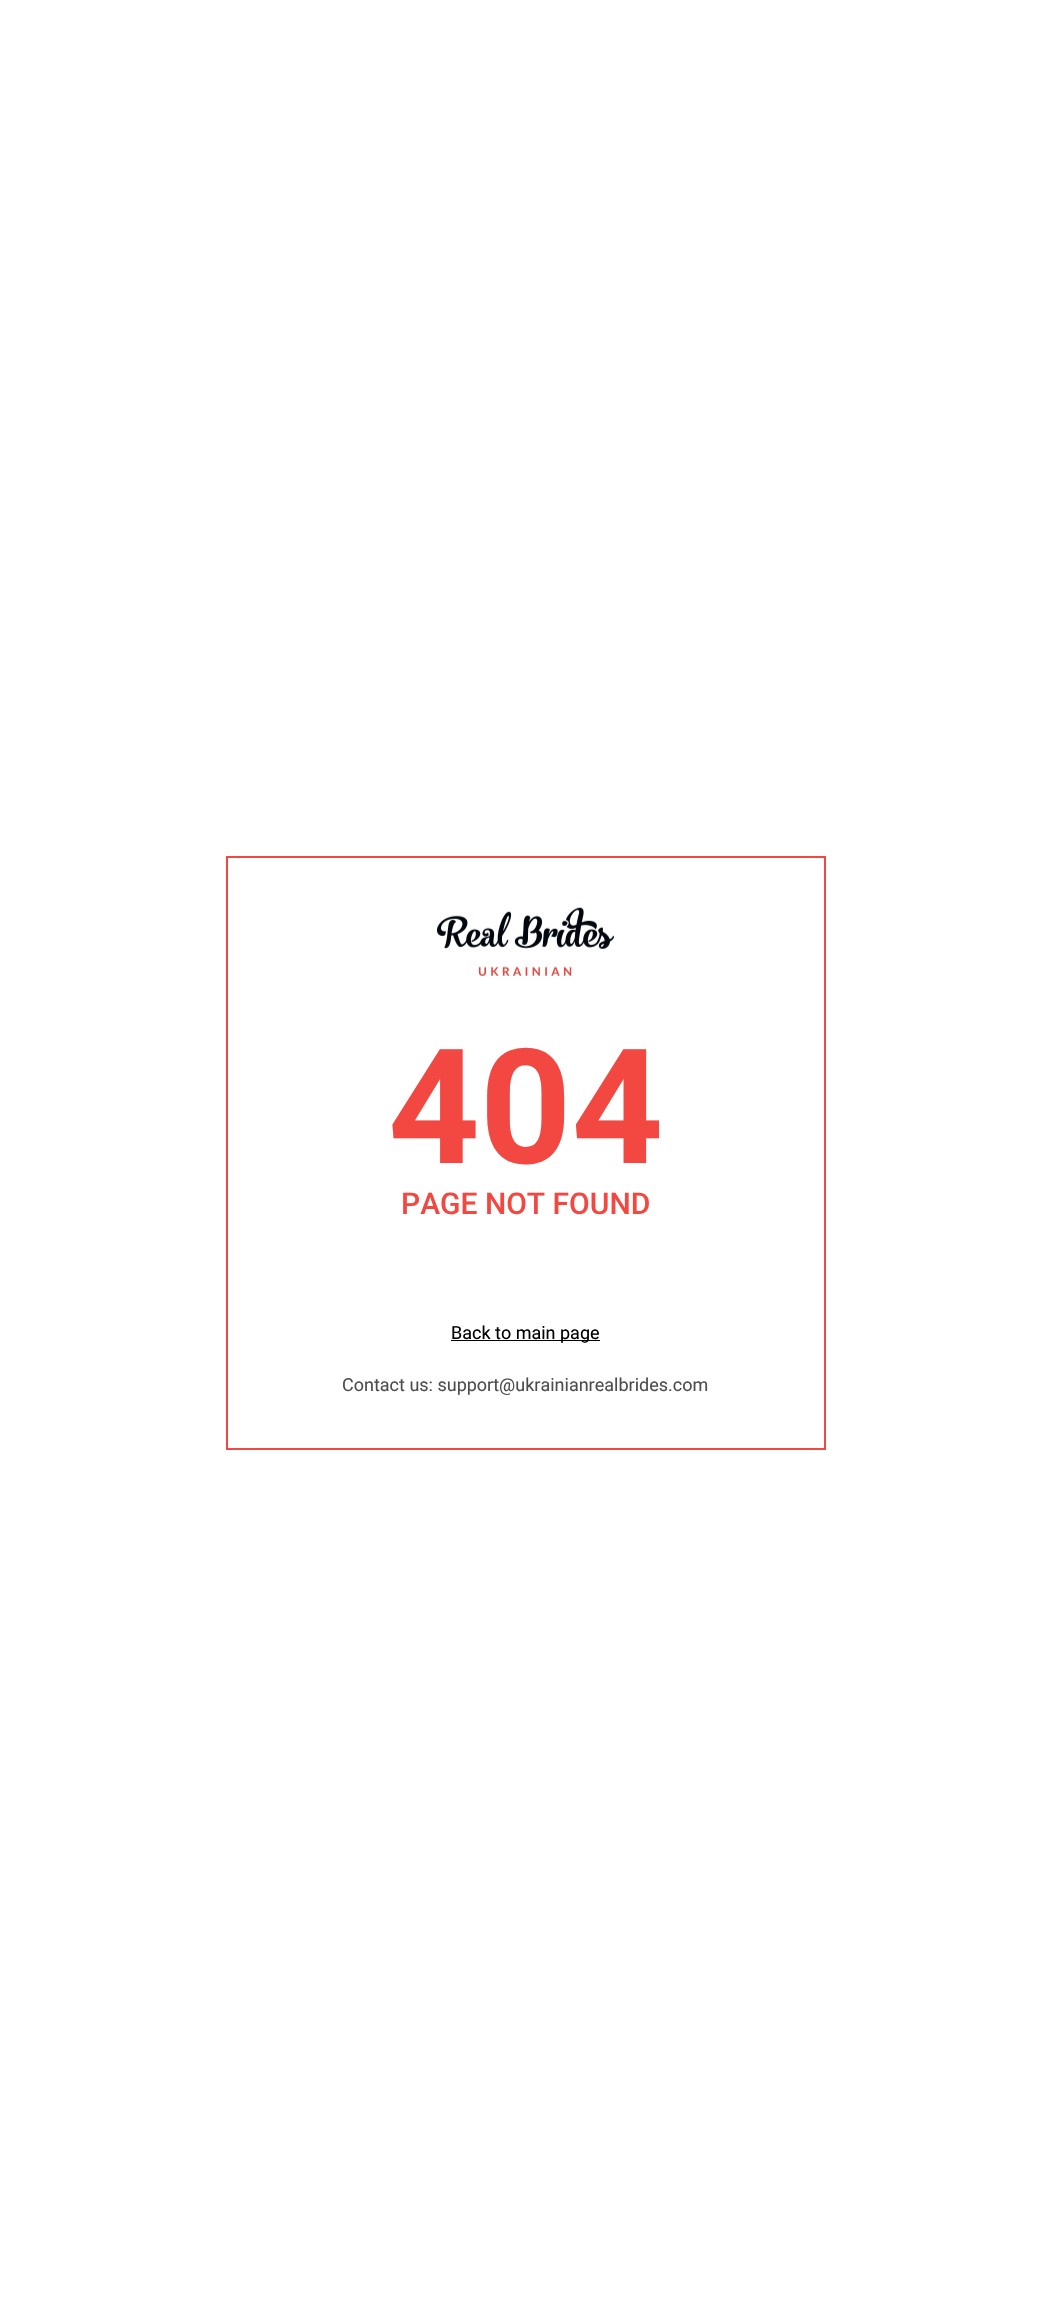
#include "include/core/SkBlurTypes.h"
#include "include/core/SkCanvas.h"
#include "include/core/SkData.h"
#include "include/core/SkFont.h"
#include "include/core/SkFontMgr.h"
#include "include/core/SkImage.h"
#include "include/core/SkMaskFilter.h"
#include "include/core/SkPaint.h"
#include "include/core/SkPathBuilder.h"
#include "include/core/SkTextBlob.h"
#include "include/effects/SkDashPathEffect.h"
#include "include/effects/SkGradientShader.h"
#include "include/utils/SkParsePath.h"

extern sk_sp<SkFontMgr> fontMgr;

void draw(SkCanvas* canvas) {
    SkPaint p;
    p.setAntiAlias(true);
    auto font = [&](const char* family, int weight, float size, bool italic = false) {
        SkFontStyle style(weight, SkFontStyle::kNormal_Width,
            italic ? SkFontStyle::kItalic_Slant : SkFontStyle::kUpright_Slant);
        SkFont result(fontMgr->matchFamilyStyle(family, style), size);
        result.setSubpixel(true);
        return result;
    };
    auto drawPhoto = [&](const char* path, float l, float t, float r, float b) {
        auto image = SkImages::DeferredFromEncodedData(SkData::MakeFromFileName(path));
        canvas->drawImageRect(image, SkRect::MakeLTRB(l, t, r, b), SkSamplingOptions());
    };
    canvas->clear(0xFFFFFFFF);
    p.setStyle(SkPaint::kStroke_Style);
    p.setStrokeWidth(2);
    p.setColor(0xFFF24841);
    canvas->drawRect(SkRect::MakeLTRB(227, 857, 825, 1449), p);
    drawPhoto("media/1.png", 437, 907, 614, 976);
    auto font1 = font("Roboto", 700, 160);
    p.setStyle(SkPaint::kFill_Style);
    canvas->drawString("404", 388, 1163, font1, p);
    auto font2 = font("Roboto", 500, 30);
    canvas->drawString("PAGE NOT FOUND", 401, 1214, font2, p);
    p.setColor(0xFF000000);
    canvas->drawRect(SkRect::MakeLTRB(451, 1340, 600, 1341), p);
    auto font3 = font("Roboto", 400, 18);
    canvas->drawString("Back to main page", 451, 1339, font3, p);
    p.setColor(0xFF4D4D4D);
    canvas->drawString("Contact us: support@ukrainianrealbrides.com", 342, 1391, font3, p);
}
